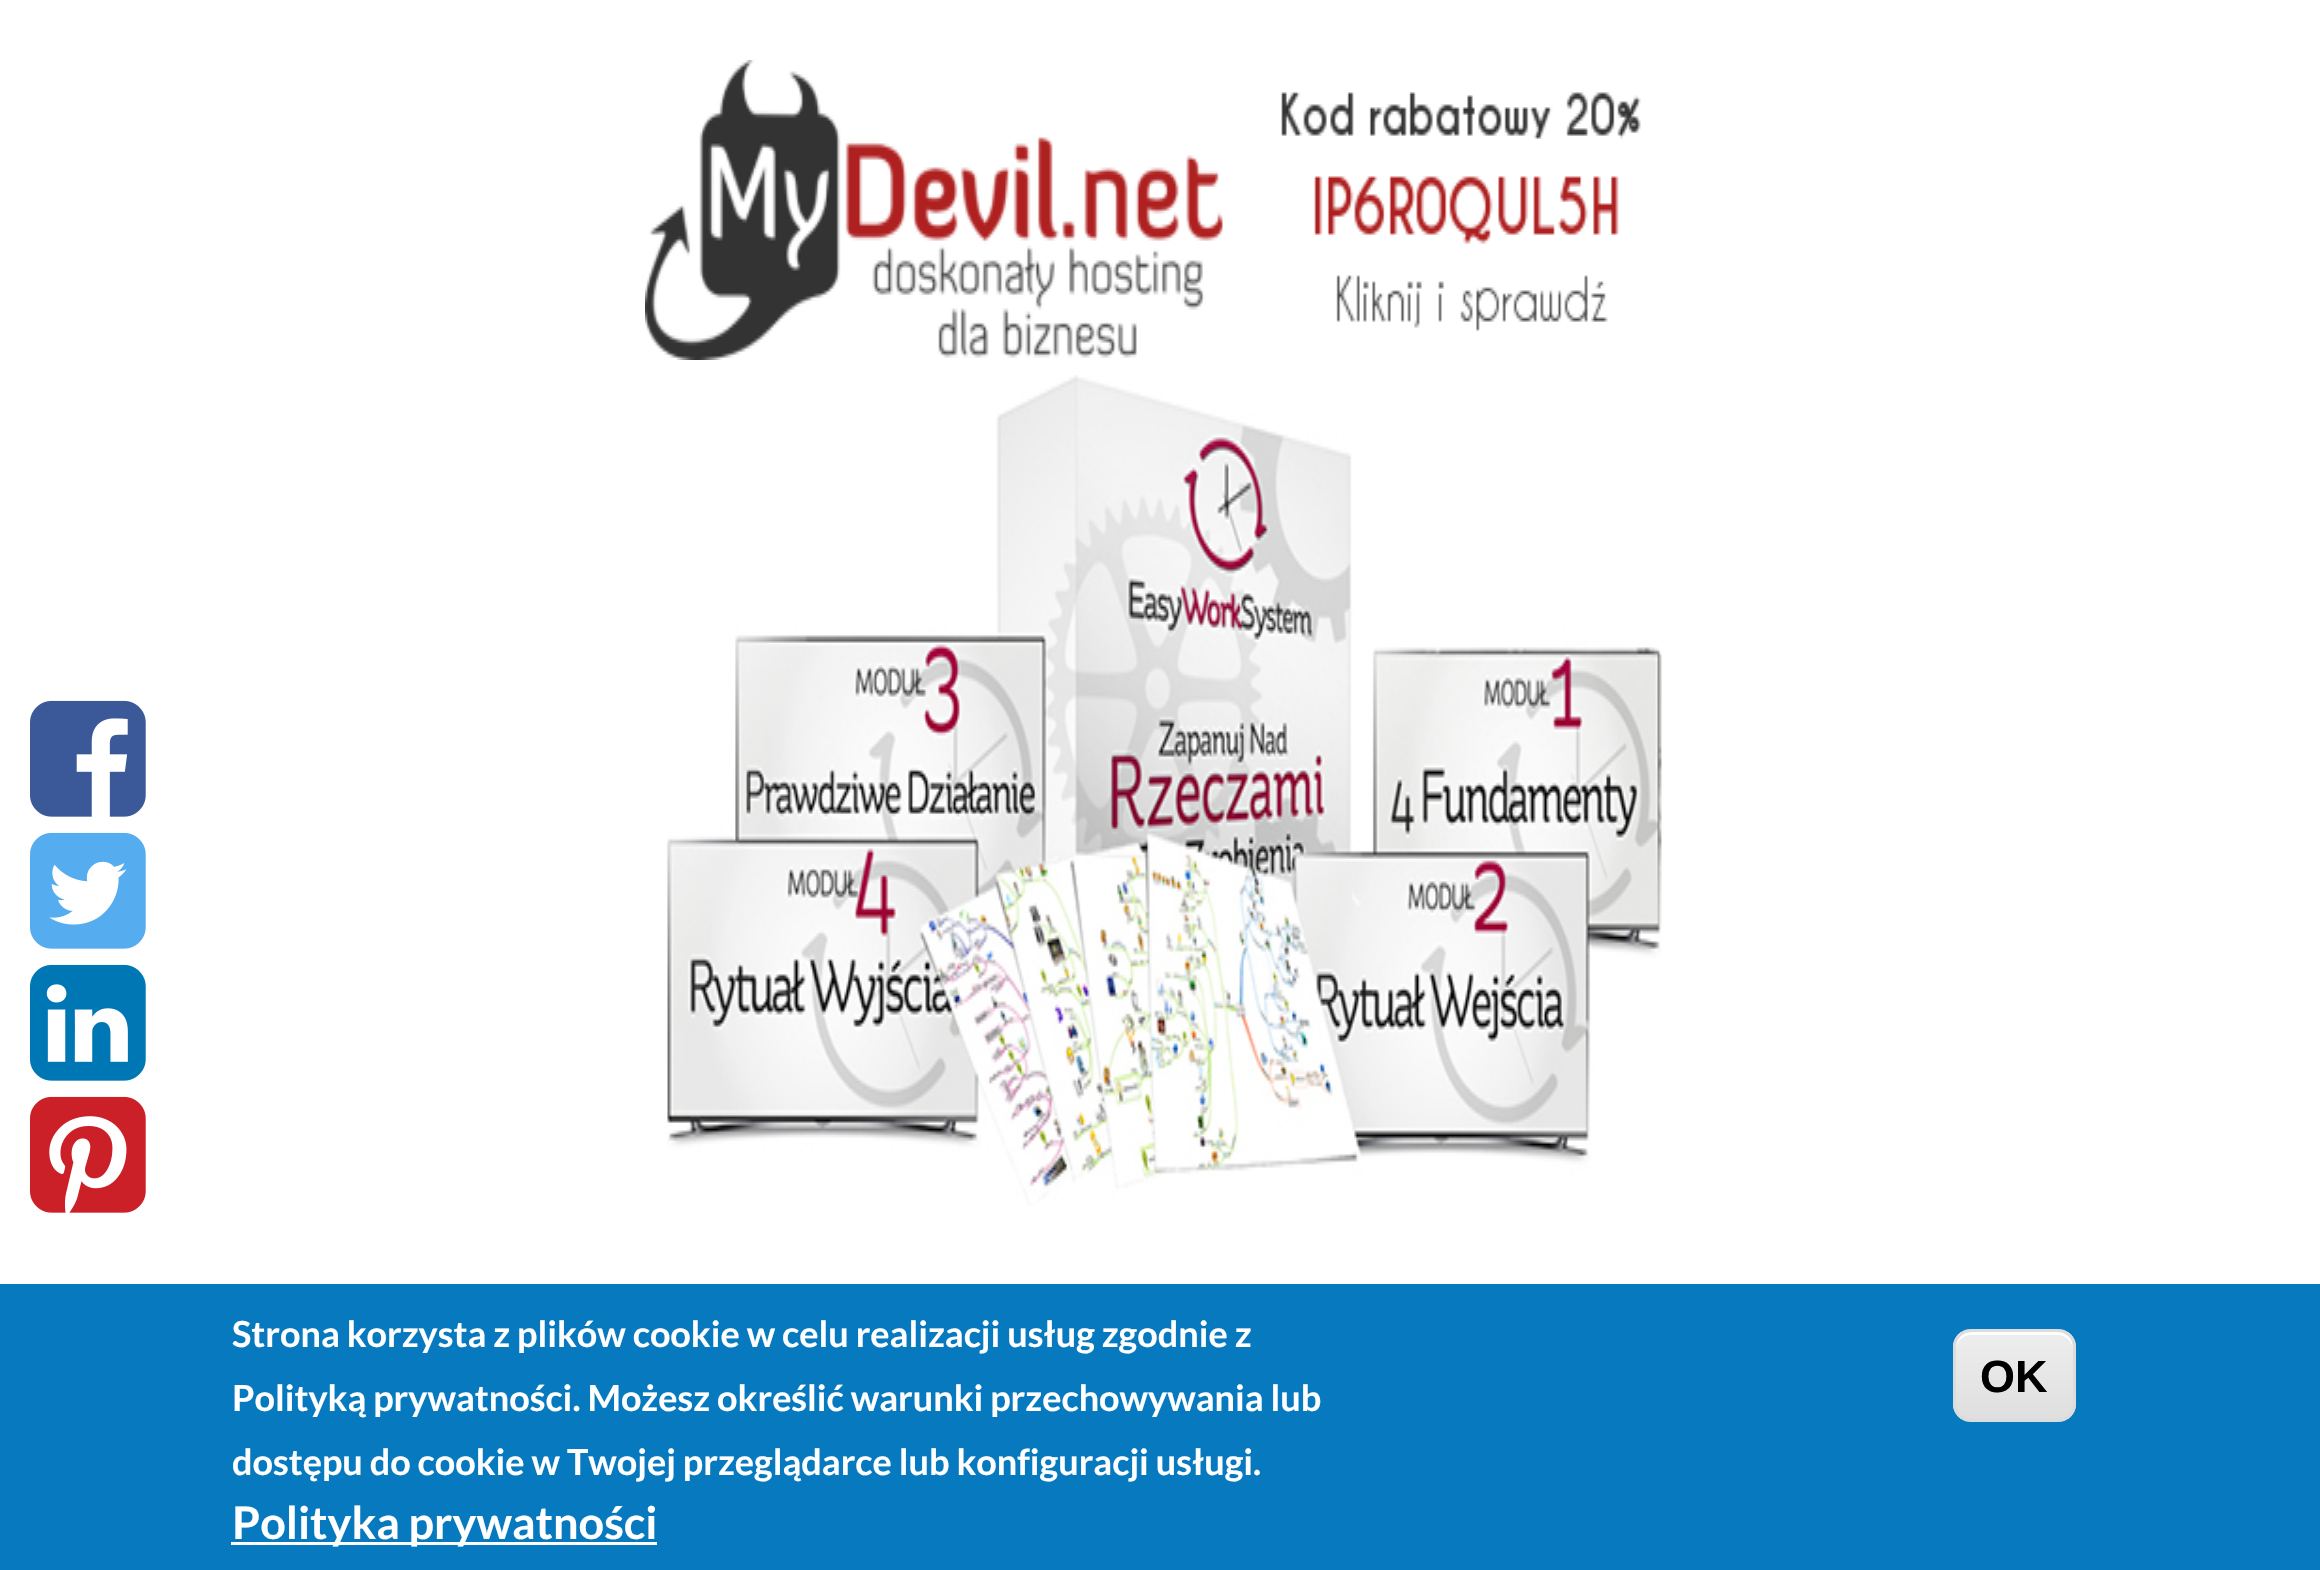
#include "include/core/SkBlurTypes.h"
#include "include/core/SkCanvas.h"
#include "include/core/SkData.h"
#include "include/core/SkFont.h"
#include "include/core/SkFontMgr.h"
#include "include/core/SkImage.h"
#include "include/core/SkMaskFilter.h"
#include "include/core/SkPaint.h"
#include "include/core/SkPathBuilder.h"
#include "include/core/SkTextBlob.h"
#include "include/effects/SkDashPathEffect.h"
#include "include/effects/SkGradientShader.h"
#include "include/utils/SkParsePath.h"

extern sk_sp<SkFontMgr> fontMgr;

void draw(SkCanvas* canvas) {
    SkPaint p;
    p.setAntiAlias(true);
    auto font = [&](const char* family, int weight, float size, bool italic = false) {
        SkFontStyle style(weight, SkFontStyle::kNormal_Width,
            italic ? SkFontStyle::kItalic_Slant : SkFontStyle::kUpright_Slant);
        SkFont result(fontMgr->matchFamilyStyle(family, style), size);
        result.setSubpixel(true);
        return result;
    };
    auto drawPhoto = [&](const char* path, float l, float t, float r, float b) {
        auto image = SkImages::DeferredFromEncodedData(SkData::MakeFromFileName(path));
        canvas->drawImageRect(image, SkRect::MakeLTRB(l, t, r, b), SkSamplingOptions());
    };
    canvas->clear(0xFFFFFFFF);
    drawPhoto("media/1.png", 30, 700, 146, 817);
    drawPhoto("media/2.png", 30, 832, 146, 949);
    drawPhoto("media/3.png", 30, 964, 146, 1081);
    drawPhoto("media/4.png", 30, 1096, 146, 1213);
    drawPhoto("media/5.png", 645, 60, 1641, 360);
    drawPhoto("media/6.png", 666, 375, 1662, 1206);
    p.setColor(0xFF0779BF);
    canvas->drawRect(SkRect::MakeLTRB(0, 1284, 2320, 1570), p);
    auto font1 = font("Lato", 700, 36);
    p.setColor(0xFFFFFFFF);
    {
        const struct { const char* s; float x, y; } items[] = {
            {"Strona korzysta z plików cookie w celu realizacji usług zgodnie z", 232, 1347},
            {"Polityką prywatności. Możesz określić warunki przechowywania lub", 232, 1411},
            {"dostępu do cookie w Twojej przeglądarce lub konfiguracji usługi.", 232, 1475},
        };
        for (auto [s, x, y] : items) {
            canvas->drawString(s, x, y, font1, p);
        }
    }
    canvas->drawRect(SkRect::MakeLTRB(231, 1542, 657, 1545), p);
    auto font2 = font("Lato", 700, 45);
    canvas->drawString("Polityka prywatności", 232, 1539, font2, p);
    canvas->save();
    canvas->clipPath(SkPathBuilder().moveTo(1971, 1329).lineTo(2058, 1329).cubicTo(2068, 1329, 2076, 1337, 2076, 1347).lineTo(2076, 1404).cubicTo(2076, 1414, 2068, 1422, 2058, 1422).lineTo(1971, 1422).cubicTo(1961, 1422, 1953, 1414, 1953, 1404).lineTo(1953, 1347).cubicTo(1953, 1337, 1961, 1329, 1971, 1329).close().detach(), true);
    {
        const SkColor colors[] = {0xFFEDEDED, 0xFFDFDFDF};
        const float stops[] = {0.05f, 1};
        const SkPoint ends[] = {{2015, 1332}, {2015, 1419}};
        p.setShader(SkGradientShader::MakeLinear(ends, colors, stops, 2, SkTileMode::kClamp));
        p.setAlpha(255);
    }
    canvas->drawRect(SkRect::MakeLTRB(1953, 1332, 2076, 1419), p);
    canvas->restore();
    p.setShader(nullptr);
    p.setColor(0xFFFFFFFF);
    canvas->drawPath(SkPathBuilder().moveTo(1971, 1335).lineTo(2058, 1335).cubicTo(2066, 1335, 2073, 1342, 2073, 1350).cubicTo(2073, 1330, 2059, 1332, 2044, 1332).lineTo(1986, 1332).cubicTo(1970, 1332, 1956, 1330, 1956, 1350).cubicTo(1956, 1342, 1963, 1335, 1971, 1335).close().detach(), p);
    p.setStyle(SkPaint::kStroke_Style);
    p.setStrokeWidth(3);
    p.setColor(0xFFDCDCDC);
    canvas->drawRoundRect(SkRect::MakeLTRB(1954.5f, 1330.5f, 2074.5f, 1420.5f), 16.5f, 16.5f, p);
    auto font3 = font("Liberation Sans", 700, 45);
    p.setStyle(SkPaint::kFill_Style);
    p.setColor(0xFF000000);
    canvas->drawString("OK", 1980, 1392, font3, p);
}
